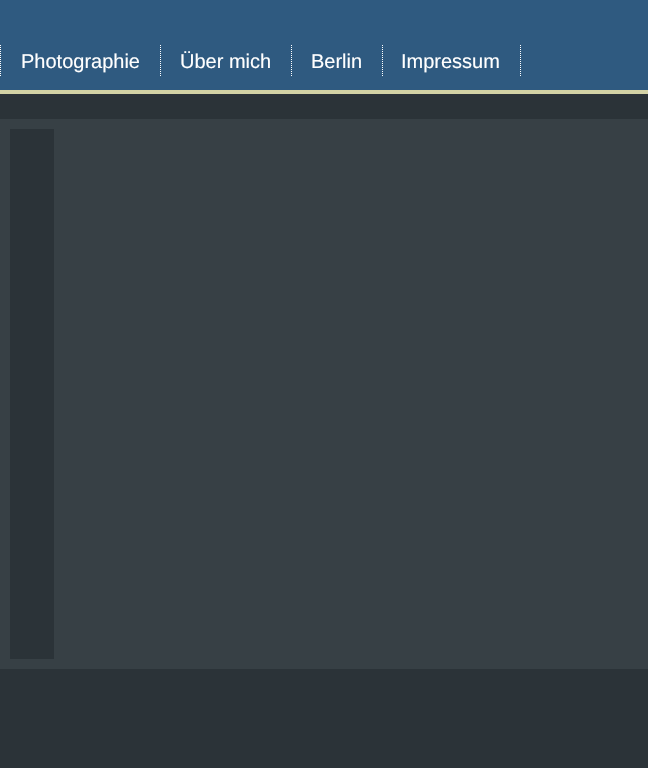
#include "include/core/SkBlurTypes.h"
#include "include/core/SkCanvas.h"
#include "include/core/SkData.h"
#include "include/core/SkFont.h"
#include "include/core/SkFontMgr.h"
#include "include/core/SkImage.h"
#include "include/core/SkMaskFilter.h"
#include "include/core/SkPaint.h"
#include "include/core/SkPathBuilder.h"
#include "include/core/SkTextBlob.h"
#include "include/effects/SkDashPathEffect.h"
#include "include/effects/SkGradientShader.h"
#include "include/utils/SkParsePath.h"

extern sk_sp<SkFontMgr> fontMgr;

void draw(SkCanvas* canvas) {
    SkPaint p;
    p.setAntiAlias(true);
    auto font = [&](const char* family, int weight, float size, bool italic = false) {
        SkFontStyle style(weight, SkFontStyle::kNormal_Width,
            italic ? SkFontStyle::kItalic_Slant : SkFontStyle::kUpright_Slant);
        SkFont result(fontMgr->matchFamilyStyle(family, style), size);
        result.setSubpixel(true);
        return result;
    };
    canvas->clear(0xFF2B3338);
    p.setColor(0xFF2F5A80);
    canvas->drawRect(SkRect::MakeLTRB(0, 0, 648, 90), p);
    p.setColor(0xFFD3D2A5);
    canvas->drawRect(SkRect::MakeLTRB(0, 90, 648, 94), p);
    auto font1 = font("Liberation Sans", 400, 20);
    p.setColor(0xFFFFFFFF);
    canvas->drawString("Photographie", 21, 68, font1, p);
    p.setStyle(SkPaint::kStroke_Style);
    p.setStrokeWidth(1);
    p.setPathEffect(SkDashPathEffect::Make({{1, 1}}, 0));
    canvas->drawPath(SkPathBuilder().moveTo(160.5f, 45).lineTo(160.5f, 77).detach(), p);
    p.setPathEffect(nullptr);
    p.setPathEffect(SkDashPathEffect::Make({{1, 1}}, 0));
    canvas->drawPath(SkPathBuilder().moveTo(0.5f, 45).lineTo(0.5f, 77).detach(), p);
    p.setPathEffect(nullptr);
    p.setStyle(SkPaint::kFill_Style);
    canvas->drawString("Über mich", 180, 68, font1, p);
    p.setStyle(SkPaint::kStroke_Style);
    p.setPathEffect(SkDashPathEffect::Make({{1, 1}}, 0));
    canvas->drawPath(SkPathBuilder().moveTo(291.5f, 45).lineTo(291.5f, 77).detach(), p);
    p.setPathEffect(nullptr);
    p.setStyle(SkPaint::kFill_Style);
    canvas->drawString("Berlin", 311, 68, font1, p);
    p.setStyle(SkPaint::kStroke_Style);
    p.setPathEffect(SkDashPathEffect::Make({{1, 1}}, 0));
    canvas->drawPath(SkPathBuilder().moveTo(382.5f, 45).lineTo(382.5f, 77).detach(), p);
    p.setPathEffect(nullptr);
    p.setStyle(SkPaint::kFill_Style);
    canvas->drawString("Impressum", 401, 68, font1, p);
    p.setStyle(SkPaint::kStroke_Style);
    p.setPathEffect(SkDashPathEffect::Make({{1, 1}}, 0));
    canvas->drawPath(SkPathBuilder().moveTo(520.5f, 45).lineTo(520.5f, 77).detach(), p);
    p.setPathEffect(nullptr);
    p.setStyle(SkPaint::kFill_Style);
    p.setColor(0xFF374045);
    canvas->drawRect(SkRect::MakeLTRB(0, 119, 648, 669), p);
    p.setColor(0xFF2B3338);
    canvas->drawRect(SkRect::MakeLTRB(10, 129, 54, 659), p);
}
